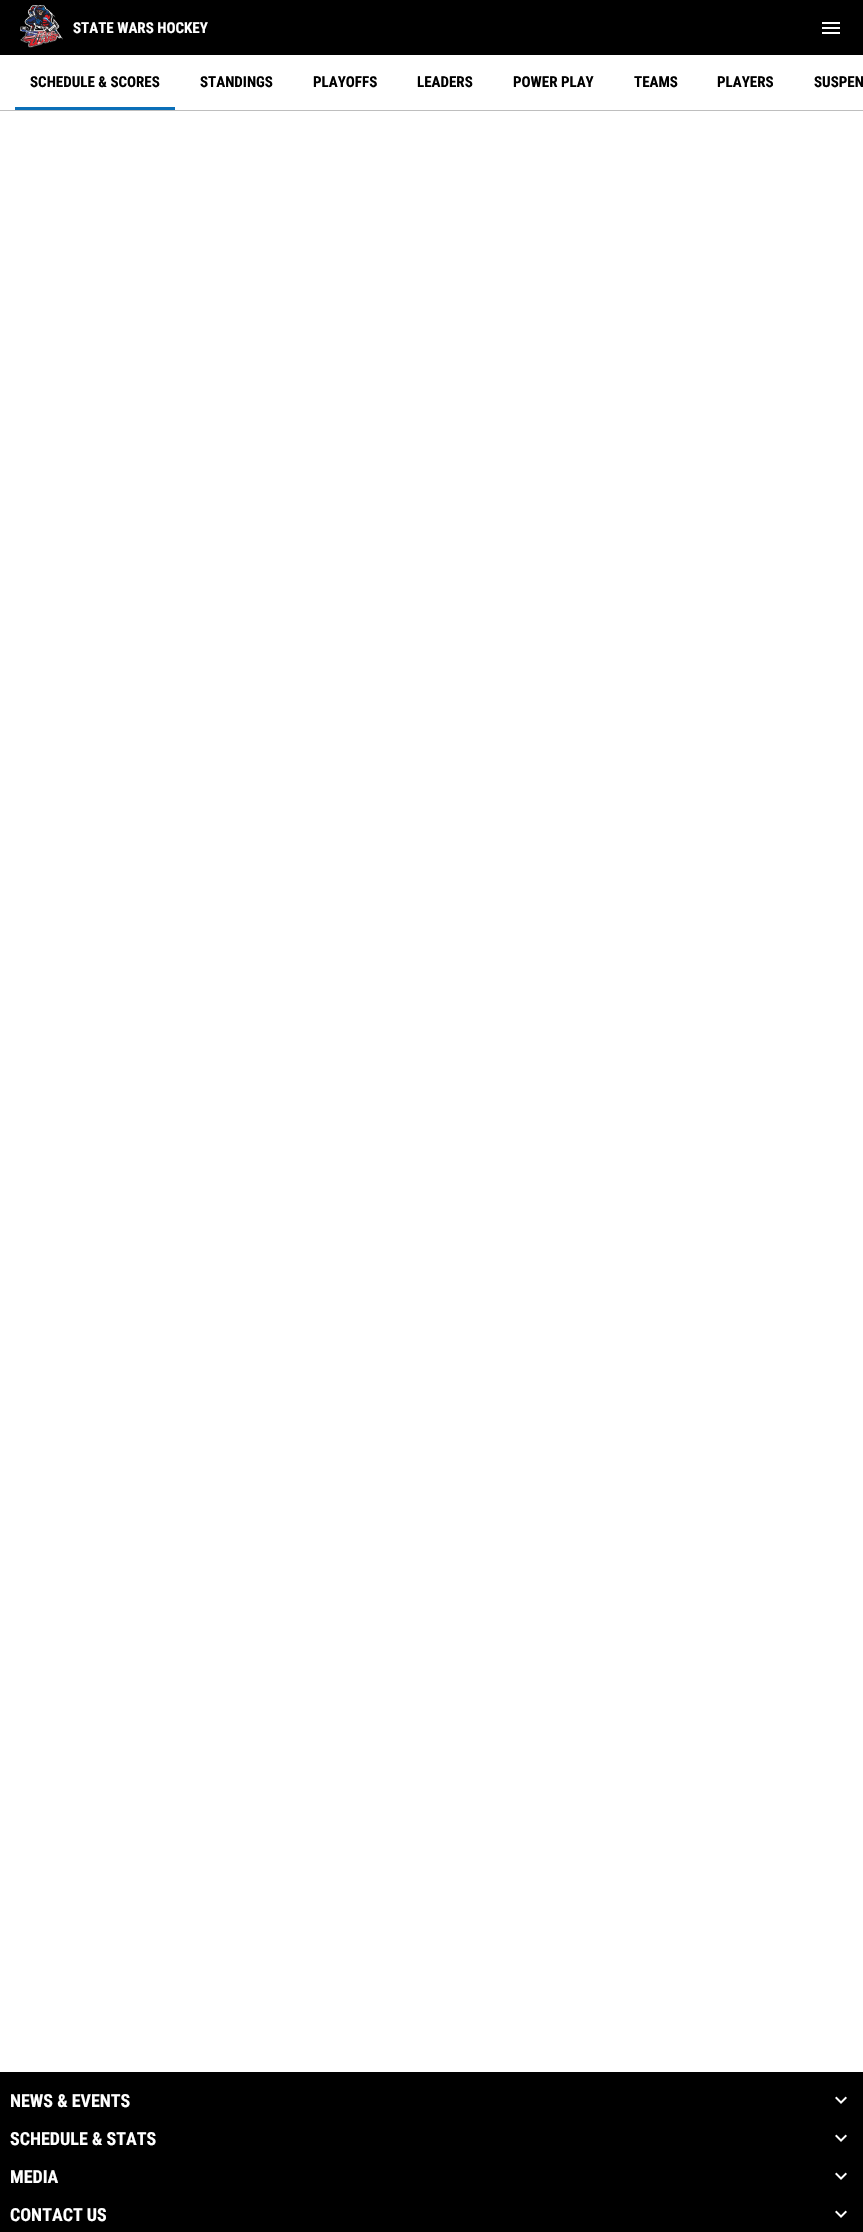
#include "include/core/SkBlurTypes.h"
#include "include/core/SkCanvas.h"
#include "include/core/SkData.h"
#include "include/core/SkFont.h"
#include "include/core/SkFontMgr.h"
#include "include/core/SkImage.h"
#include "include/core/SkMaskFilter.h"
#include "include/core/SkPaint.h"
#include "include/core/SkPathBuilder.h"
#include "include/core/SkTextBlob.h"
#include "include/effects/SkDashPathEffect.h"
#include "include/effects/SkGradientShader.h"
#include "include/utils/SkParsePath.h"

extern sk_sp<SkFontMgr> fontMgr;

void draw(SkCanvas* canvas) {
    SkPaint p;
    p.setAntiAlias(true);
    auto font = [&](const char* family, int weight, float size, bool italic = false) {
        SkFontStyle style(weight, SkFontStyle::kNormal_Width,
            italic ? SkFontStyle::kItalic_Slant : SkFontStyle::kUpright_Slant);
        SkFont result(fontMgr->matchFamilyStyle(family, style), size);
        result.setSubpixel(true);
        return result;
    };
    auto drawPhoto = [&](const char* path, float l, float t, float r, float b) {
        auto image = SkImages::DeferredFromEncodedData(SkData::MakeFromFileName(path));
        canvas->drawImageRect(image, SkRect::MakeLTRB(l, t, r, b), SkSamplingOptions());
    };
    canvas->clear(0xFFFFFFFF);
    p.setColor(0xFF000000);
    canvas->drawRect(SkRect::MakeLTRB(0, 0, 863, 55), p);
    drawPhoto("media/1.png", 20, 5, 63, 48);
    auto font1 = font("Roboto Condensed", 700, 15);
    p.setColor(0xFFFFFFFF);
    canvas->drawString("STATE WARS HOCKEY", 73, 33, font1, p);
    drawPhoto("media/2.png", 822, 22, 840, 34);
    p.setColor(0xFFBEBEBE);
    canvas->drawRect(SkRect::MakeLTRB(0, 110, 863, 111), p);
    p.setColor(0xFF000000);
    canvas->drawString("SCHEDULE & SCORES", 30, 87, font1, p);
    p.setColor(0xFF0B6FB8);
    canvas->drawRect(SkRect::MakeLTRB(15, 107, 175, 110), p);
    p.setColor(0xFF000000);
    {
        const struct { const char* s; float x, y; } items[] = {
            {"STANDINGS", 200, 87},
            {"PLAYOFFS", 313, 87},
            {"LEADERS", 417, 87},
            {"POWER PLAY", 513, 87},
            {"TEAMS", 634, 87},
            {"PLAYERS", 717, 87},
            {"SUSPEN", 814, 87},
        };
        for (auto [s, x, y] : items) {
            canvas->drawString(s, x, y, font1, p);
        }
    }
    canvas->drawRect(SkRect::MakeLTRB(0, 2072, 863, 2232), p);
    auto font2 = font("Roboto Condensed", 700, 18);
    p.setColor(0xFFFFFFFF);
    canvas->drawString("NEWS & EVENTS", 10, 2107, font2, p);
    drawPhoto("media/3.png", 835, 2096, 847, 2104);
    canvas->drawString("SCHEDULE & STATS", 10, 2145, font2, p);
    drawPhoto("media/3.png", 835, 2134, 847, 2142);
    canvas->drawString("MEDIA", 10, 2183, font2, p);
    drawPhoto("media/3.png", 835, 2172, 847, 2180);
    canvas->drawString("CONTACT US", 10, 2221, font2, p);
    drawPhoto("media/3.png", 835, 2210, 847, 2218);
}
